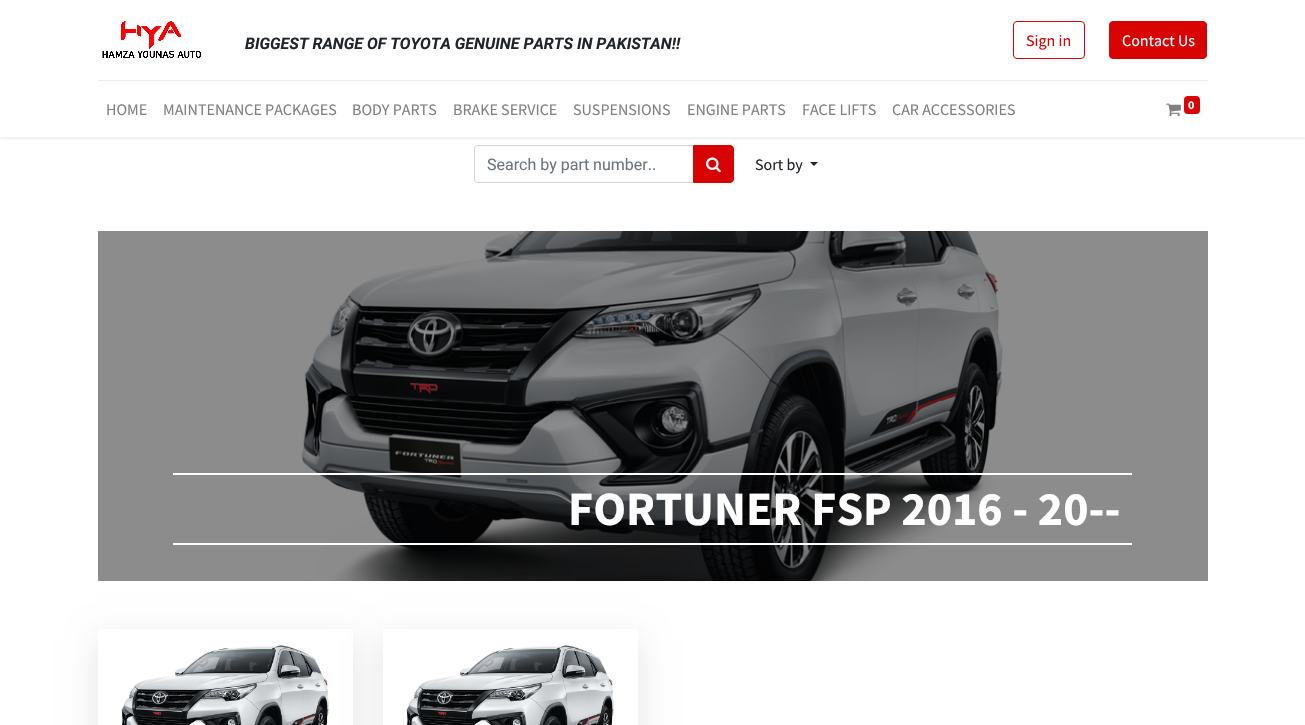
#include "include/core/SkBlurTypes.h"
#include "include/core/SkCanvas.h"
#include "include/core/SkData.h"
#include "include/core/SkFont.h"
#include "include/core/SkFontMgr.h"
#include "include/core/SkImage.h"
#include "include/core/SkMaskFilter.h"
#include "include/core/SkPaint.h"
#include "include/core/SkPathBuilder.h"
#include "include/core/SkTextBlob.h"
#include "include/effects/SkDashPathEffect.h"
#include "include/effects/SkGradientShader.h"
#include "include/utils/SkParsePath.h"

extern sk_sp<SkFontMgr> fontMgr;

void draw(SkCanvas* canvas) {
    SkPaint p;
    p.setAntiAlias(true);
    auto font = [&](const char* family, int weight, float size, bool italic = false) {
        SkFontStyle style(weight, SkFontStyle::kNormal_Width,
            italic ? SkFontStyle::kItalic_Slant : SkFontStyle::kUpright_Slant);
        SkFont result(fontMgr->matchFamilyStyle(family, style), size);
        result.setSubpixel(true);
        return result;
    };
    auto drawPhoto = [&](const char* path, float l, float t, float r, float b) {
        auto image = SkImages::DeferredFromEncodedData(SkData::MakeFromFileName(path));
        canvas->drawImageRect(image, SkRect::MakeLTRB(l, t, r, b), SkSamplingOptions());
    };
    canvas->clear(0xFFFFFFFF);
    p.setColor(0xFF8C8C8C);
    canvas->drawRect(SkRect::MakeLTRB(98, 231, 1208, 581), p);
    p.setStyle(SkPaint::kStroke_Style);
    p.setStrokeWidth(1);
    p.setColor(0xFFCED4DA);
    canvas->drawPath(SkPathBuilder().moveTo(478, 145.5f).lineTo(693.5f, 145.5f).lineTo(693.5f, 182.5f).lineTo(478, 182.5f).cubicTo(476, 182.5f, 474.5f, 181, 474.5f, 179).lineTo(474.5f, 149).cubicTo(474.5f, 147, 476, 145.5f, 478, 145.5f).close().detach(), p);
    p.setStyle(SkPaint::kFill_Style);
    p.setColor(0xFFD80303);
    canvas->drawPath(SkPathBuilder().moveTo(693.5f, 145.5f).lineTo(730, 145.5f).cubicTo(732, 145.5f, 733.5f, 147, 733.5f, 149).lineTo(733.5f, 179).cubicTo(733.5f, 181, 732, 182.5f, 730, 182.5f).lineTo(693.5f, 182.5f).close().detach(), p);
    p.setStyle(SkPaint::kStroke_Style);
    canvas->drawPath(SkPathBuilder().moveTo(693.5f, 145.5f).lineTo(730, 145.5f).cubicTo(732, 145.5f, 733.5f, 147, 733.5f, 149).lineTo(733.5f, 179).cubicTo(733.5f, 181, 732, 182.5f, 730, 182.5f).lineTo(693.5f, 182.5f).close().detach(), p);
    canvas->save();
    canvas->clipRect(SkRect::MakeLTRB(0, 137, 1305, 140));
    p.setStyle(SkPaint::kFill_Style);
    p.setColor(0x12000000);
    p.setMaskFilter(SkMaskFilter::MakeBlur(kNormal_SkBlurStyle, 2));
    canvas->drawRect(SkRect::MakeLTRB(0, 2, 1305, 139), p);
    p.setMaskFilter(nullptr);
    canvas->restore();
    drawPhoto("media/1.png", 102, 21, 201, 58);
    auto font1 = font("Roboto", 700, 16, true);
    p.setColor(0xFF212529);
    canvas->drawString("BIGGEST RANGE OF TOYOTA GENUINE PARTS IN PAKISTAN!!", 245, 49, font1, p);
    p.setStyle(SkPaint::kStroke_Style);
    p.setColor(0xFFD80303);
    canvas->drawRoundRect(SkRect::MakeLTRB(1013.5f, 21.5f, 1084.5f, 58.5f), 3.5f, 3.5f, p);
    auto font2 = font("Source Sans Pro", 400, 16);
    p.setStyle(SkPaint::kFill_Style);
    canvas->drawString("Sign in", 1026, 46, font2, p);
    canvas->drawRoundRect(SkRect::MakeLTRB(1109.5f, 21.5f, 1206.5f, 58.5f), 3.5f, 3.5f, p);
    p.setStyle(SkPaint::kStroke_Style);
    canvas->drawRoundRect(SkRect::MakeLTRB(1109.5f, 21.5f, 1206.5f, 58.5f), 3.5f, 3.5f, p);
    p.setStyle(SkPaint::kFill_Style);
    p.setColor(0xFFFFFFFF);
    canvas->drawString("Contact Us", 1122, 46, font2, p);
    p.setColor(0xFFE9ECEF);
    canvas->drawRect(SkRect::MakeLTRB(98, 80, 1208, 81), p);
    p.setColor(0xFF808080);
    {
        const struct { const char* s; float x, y; } items[] = {
            {"HOME", 106, 115},
            {"MAINTENANCE PACKAGES", 163, 115},
            {"BODY PARTS", 352, 115},
            {"BRAKE SERVICE", 453, 115},
            {"SUSPENSIONS", 573, 115},
            {"ENGINE PARTS", 687, 115},
            {"FACE LIFTS", 802, 115},
            {"CAR ACCESSORIES", 892, 115},
        };
        for (auto [s, x, y] : items) {
            canvas->drawString(s, x, y, font2, p);
        }
    }
    drawPhoto("media/2.png", 1166, 103, 1181, 117);
    p.setColor(0xFFD80303);
    canvas->drawRoundRect(SkRect::MakeLTRB(1184, 96, 1200, 114), 4, 4, p);
    auto font3 = font("Source Sans Pro", 700, 12);
    p.setColor(0xFFFFFFFF);
    canvas->drawString("0", 1188, 109, font3, p);
    auto font4 = font("Roboto", 400, 16);
    p.setColor(0xFF6C757D);
    canvas->drawString("Search by part number..", 487, 170, font4, p);
    drawPhoto("media/3.png", 706, 157, 721, 173);
    p.setColor(0xFF212529);
    canvas->drawString("Sort by", 755, 170, font2, p);
    canvas->drawPath(SkPathBuilder().moveTo(810, 162).lineTo(818, 162).lineTo(814, 166).close().detach(), p);
    drawPhoto("media/4.png", 301, 231, 1003, 581);
    p.setColor(0xFFFFFFFF);
    canvas->drawRect(SkRect::MakeLTRB(173, 473, 1132, 475), p);
    auto font5 = font("Source Sans Pro", 700, 48);
    canvas->drawString("FORTUNER FSP 2016 - 20--", 568, 525, font5, p);
    canvas->drawRect(SkRect::MakeLTRB(173, 543, 1132, 545), p);
    p.setColor(0x1A000000);
    p.setMaskFilter(SkMaskFilter::MakeBlur(kNormal_SkBlurStyle, 15));
    canvas->drawRect(SkRect::MakeLTRB(98, 639, 353, 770), p);
    p.setMaskFilter(nullptr);
    drawPhoto("media/5.png", 98, 629, 353, 725);
    p.setMaskFilter(SkMaskFilter::MakeBlur(kNormal_SkBlurStyle, 15));
    canvas->drawRect(SkRect::MakeLTRB(383, 639, 638, 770), p);
    p.setMaskFilter(nullptr);
    drawPhoto("media/5.png", 383, 629, 638, 725);
}
